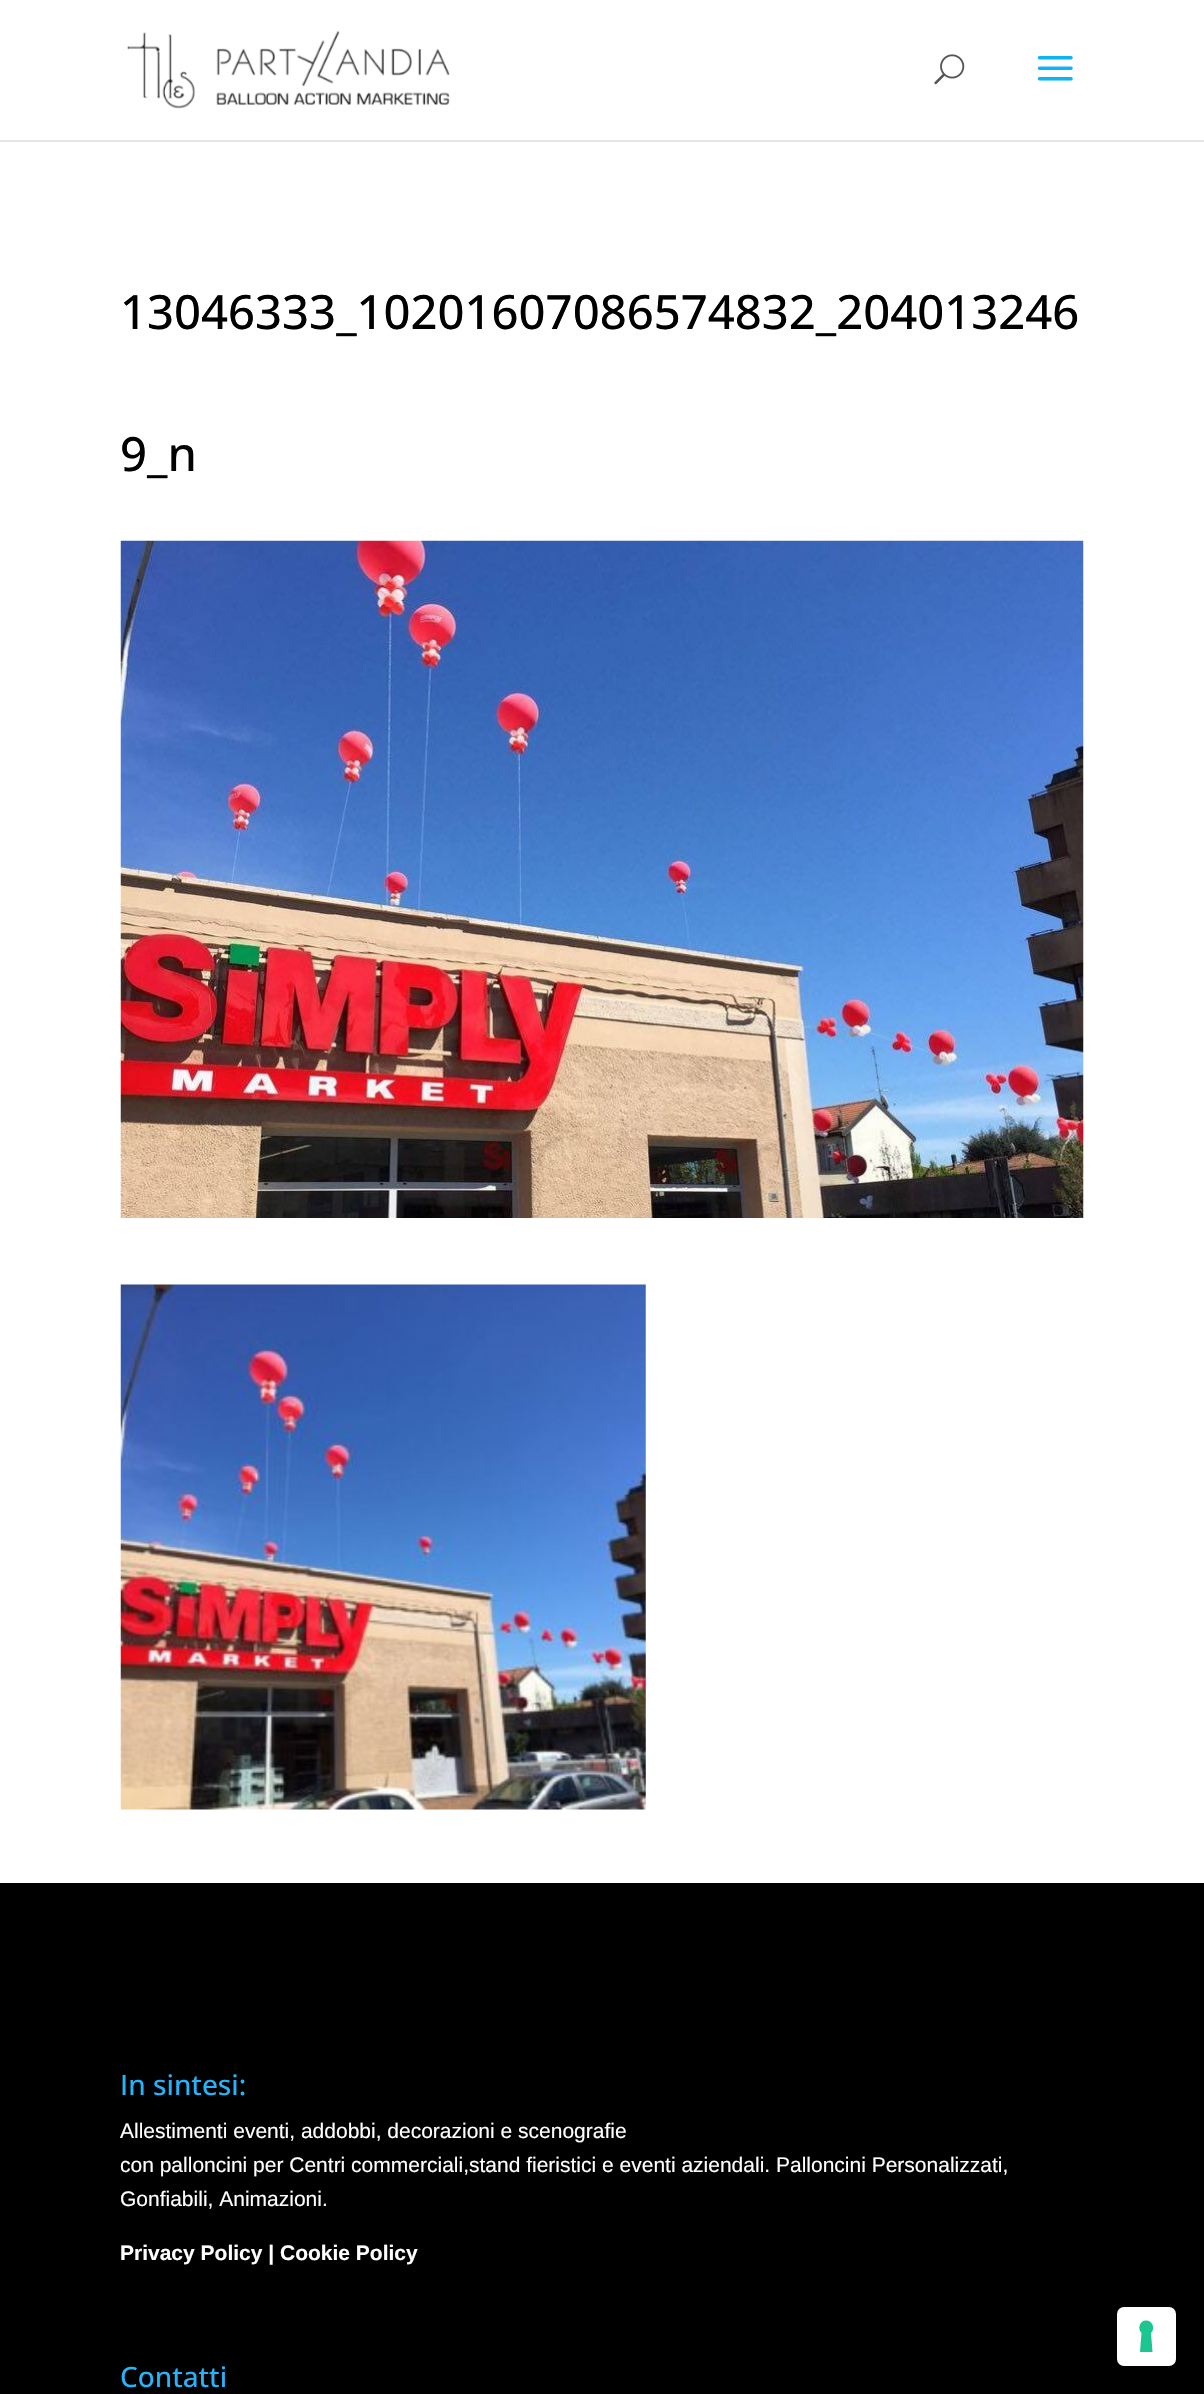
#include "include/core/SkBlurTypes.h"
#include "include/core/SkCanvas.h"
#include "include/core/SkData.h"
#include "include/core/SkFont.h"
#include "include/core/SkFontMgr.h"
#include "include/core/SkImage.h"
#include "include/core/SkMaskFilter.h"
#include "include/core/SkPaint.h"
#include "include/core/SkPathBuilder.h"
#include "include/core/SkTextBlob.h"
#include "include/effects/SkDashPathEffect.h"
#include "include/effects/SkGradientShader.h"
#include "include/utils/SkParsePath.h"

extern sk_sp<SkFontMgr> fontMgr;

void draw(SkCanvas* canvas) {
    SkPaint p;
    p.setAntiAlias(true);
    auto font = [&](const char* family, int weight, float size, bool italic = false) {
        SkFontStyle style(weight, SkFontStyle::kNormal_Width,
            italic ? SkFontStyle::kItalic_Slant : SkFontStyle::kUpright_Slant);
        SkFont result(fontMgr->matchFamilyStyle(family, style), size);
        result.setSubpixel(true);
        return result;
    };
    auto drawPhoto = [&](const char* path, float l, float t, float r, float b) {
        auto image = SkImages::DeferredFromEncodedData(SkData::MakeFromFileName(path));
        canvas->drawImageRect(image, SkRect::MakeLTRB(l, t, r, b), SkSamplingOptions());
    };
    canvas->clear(0xFFFFFFFF);
    p.setColor(0xFFE6E6E6);
    canvas->drawRect(SkRect::MakeLTRB(0, 140, 1204, 142), p);
    drawPhoto("media/1.png", 127, 31, 450, 109);
    drawPhoto("media/2.png", 934, 54, 965, 85);
    drawPhoto("media/3.png", 1037, 56, 1073, 81);
    auto font1 = font("Open Sans", 500, 47.25f);
    p.setColor(0xFF000000);
    canvas->drawString("13046333_10201607086574832_204013246", 120, 329, font1, p);
    canvas->drawString("9_n", 120, 471, font1, p);
    drawPhoto("media/4.png", 120, 540, 1084, 1218);
    drawPhoto("media/5.png", 120, 1284, 646, 1810);
    canvas->drawRect(SkRect::MakeLTRB(0, 1883, 1204, 2394), p);
    auto font2 = font("Open Sans", 500, 28);
    p.setColor(0xFF27B3F9);
    canvas->drawString("In sintesi:", 120, 2095, font2, p);
    auto font3 = font("Liberation Sans", 400, 21);
    p.setColor(0xFFFFFFFF);
    {
        const struct { const char* s; float x, y; } items[] = {
            {"Allestimenti eventi, addobbi, decorazioni e scenografie", 120, 2138},
            {"con palloncini per Centri commerciali,stand fieristici e eventi aziendali. Palloncini Personalizzati,", 120, 2172},
            {"Gonfiabili, Animazioni.", 120, 2206},
        };
        for (auto [s, x, y] : items) {
            canvas->drawString(s, x, y, font3, p);
        }
    }
    auto font4 = font("Liberation Sans", 700, 21);
    canvas->drawString("Privacy Policy | Cookie Policy", 120, 2260, font4, p);
    p.setColor(0xFF27B3F9);
    canvas->drawString("Contatti", 120, 2387, font2, p);
    p.setColor(0xFFFFFFFF);
    canvas->drawRoundRect(SkRect::MakeLTRB(1117, 2307, 1176, 2366), 7, 7, p);
    p.setColor(0xFF1CC691);
    canvas->drawPath(SkPathBuilder(SkPathFillType::kEvenOdd).moveTo(1146, 2320.5f).cubicTo(1152.5f, 2320.5f, 1155.5f, 2328.5f, 1151, 2333).lineTo(1152.5f, 2352).lineTo(1140, 2352).lineTo(1141.5f, 2333).cubicTo(1137, 2328.5f, 1140, 2320.5f, 1146, 2320.5f).close().detach(), p);
}
